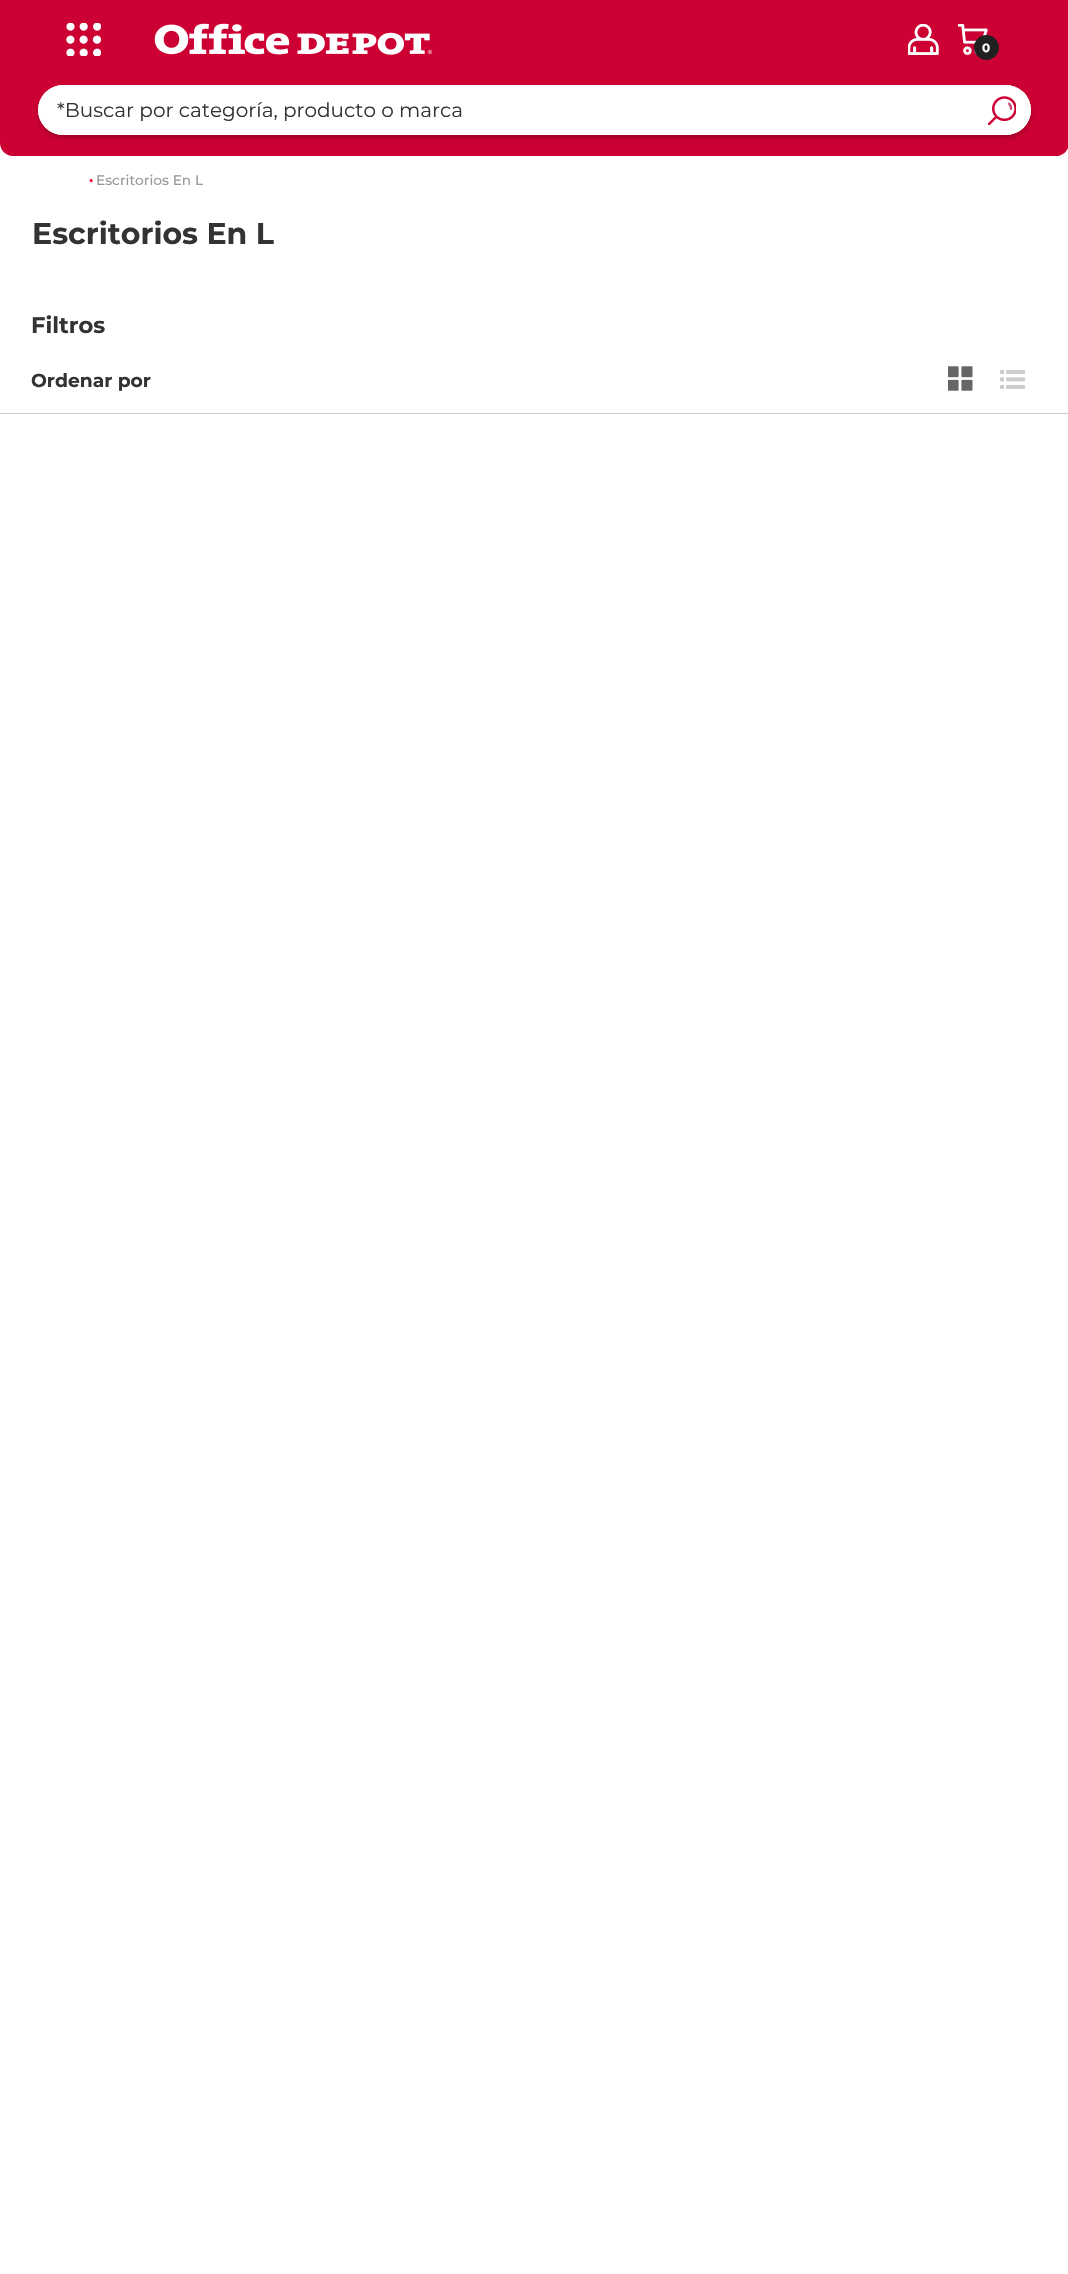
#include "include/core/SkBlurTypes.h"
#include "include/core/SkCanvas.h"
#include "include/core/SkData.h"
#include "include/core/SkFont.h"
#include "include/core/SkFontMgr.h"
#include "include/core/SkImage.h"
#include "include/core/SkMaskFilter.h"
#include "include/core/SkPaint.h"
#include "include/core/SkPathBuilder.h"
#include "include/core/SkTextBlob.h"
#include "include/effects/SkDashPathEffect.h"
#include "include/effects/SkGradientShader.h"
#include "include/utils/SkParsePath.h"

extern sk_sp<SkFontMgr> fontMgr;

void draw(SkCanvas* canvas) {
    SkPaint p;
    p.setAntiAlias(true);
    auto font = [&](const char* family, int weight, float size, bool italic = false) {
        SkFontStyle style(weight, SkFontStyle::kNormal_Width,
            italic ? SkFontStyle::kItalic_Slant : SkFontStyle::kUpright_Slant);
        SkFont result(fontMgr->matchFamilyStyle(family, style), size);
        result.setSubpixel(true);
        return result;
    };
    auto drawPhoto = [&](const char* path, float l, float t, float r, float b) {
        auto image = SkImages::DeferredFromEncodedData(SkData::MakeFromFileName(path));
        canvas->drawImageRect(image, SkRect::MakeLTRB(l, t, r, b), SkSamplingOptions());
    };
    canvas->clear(0xFFFFFFFF);
    p.setColor(0xFFCC0033);
    canvas->drawPath(SkPathBuilder().moveTo(0, 0).lineTo(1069, 0).lineTo(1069, 143).cubicTo(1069, 150, 1063, 156, 1056, 156).lineTo(13, 156).cubicTo(6, 156, 0, 150, 0, 143).close().detach(), p);
    drawPhoto("media/1.png", 66, 23, 101, 56);
    drawPhoto("media/2.png", 154, 23, 433, 55);
    drawPhoto("media/3.png", 908, 24, 939, 55);
    drawPhoto("media/4.png", 958, 24, 988, 55);
    p.setColor(0xFF202020);
    canvas->drawCircle(986.5f, 47.5f, 12.5f, p);
    auto font1 = font("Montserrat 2", 700, 12);
    p.setColor(0xFFFFFFFF);
    canvas->drawString("0", 982, 52, font1, p);
    canvas->drawRoundRect(SkRect::MakeLTRB(38, 85, 1031, 135), 25, 25, p);
    canvas->save();
    canvas->clipPath(SkPathBuilder(SkPathFillType::kEvenOdd).moveTo(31, 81).lineTo(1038, 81).lineTo(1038, 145).lineTo(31, 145).close().moveTo(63, 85).lineTo(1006, 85).cubicTo(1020, 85, 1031, 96, 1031, 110).cubicTo(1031, 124, 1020, 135, 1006, 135).lineTo(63, 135).cubicTo(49, 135, 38, 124, 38, 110).cubicTo(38, 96, 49, 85, 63, 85).close().detach(), true);
    p.setColor(0x36000000);
    p.setMaskFilter(SkMaskFilter::MakeBlur(kNormal_SkBlurStyle, 2));
    canvas->drawRoundRect(SkRect::MakeLTRB(38, 88, 1031, 138), 25, 25, p);
    p.setMaskFilter(nullptr);
    canvas->restore();
    p.setColor(0xFFFFFFFF);
    canvas->drawRoundRect(SkRect::MakeLTRB(38.5f, 85.5f, 972.5f, 134.5f), 24.5f, 24.5f, p);
    p.setStyle(SkPaint::kStroke_Style);
    p.setStrokeWidth(1);
    canvas->drawRoundRect(SkRect::MakeLTRB(38.5f, 85.5f, 972.5f, 134.5f), 24.5f, 24.5f, p);
    auto font2 = font("Montserrat", 400, 20);
    p.setStyle(SkPaint::kFill_Style);
    p.setColor(0xFF333333);
    canvas->drawString("*Buscar por categoría, producto o marca", 57, 117, font2, p);
    p.setColor(0xFFFFFFFF);
    canvas->drawRoundRect(SkRect::MakeLTRB(973, 85, 1031, 135), 25, 25, p);
    drawPhoto("media/5.png", 988, 96, 1016, 125);
    auto font3 = font("Montserrat", 700, 22.5f);
    p.setColor(0xFFFF0534);
    canvas->drawString("·", 88, 187, font3, p);
    auto font4 = font("Montserrat", 500, 13.75f);
    p.setColor(0xFF9A9A9A);
    canvas->drawString("Escritorios En L", 96, 185, font4, p);
    auto font5 = font("Montserrat 2", 700, 30);
    p.setColor(0xFF333333);
    canvas->drawString("Escritorios En L", 32, 244, font5, p);
    auto font6 = font("Montserrat 2", 700, 22.5f);
    canvas->drawString("Filtros", 31, 333, font6, p);
    auto font7 = font("Montserrat 2", 700, 18.75f);
    canvas->drawString("Ordenar por", 31, 387, font7, p);
    drawPhoto("media/6.png", 948, 366, 973, 391);
    drawPhoto("media/7.png", 1000, 370, 1025, 389);
    p.setColor(0xFFCCCCCC);
    canvas->drawRect(SkRect::MakeLTRB(0, 413, 1068, 414), p);
}
